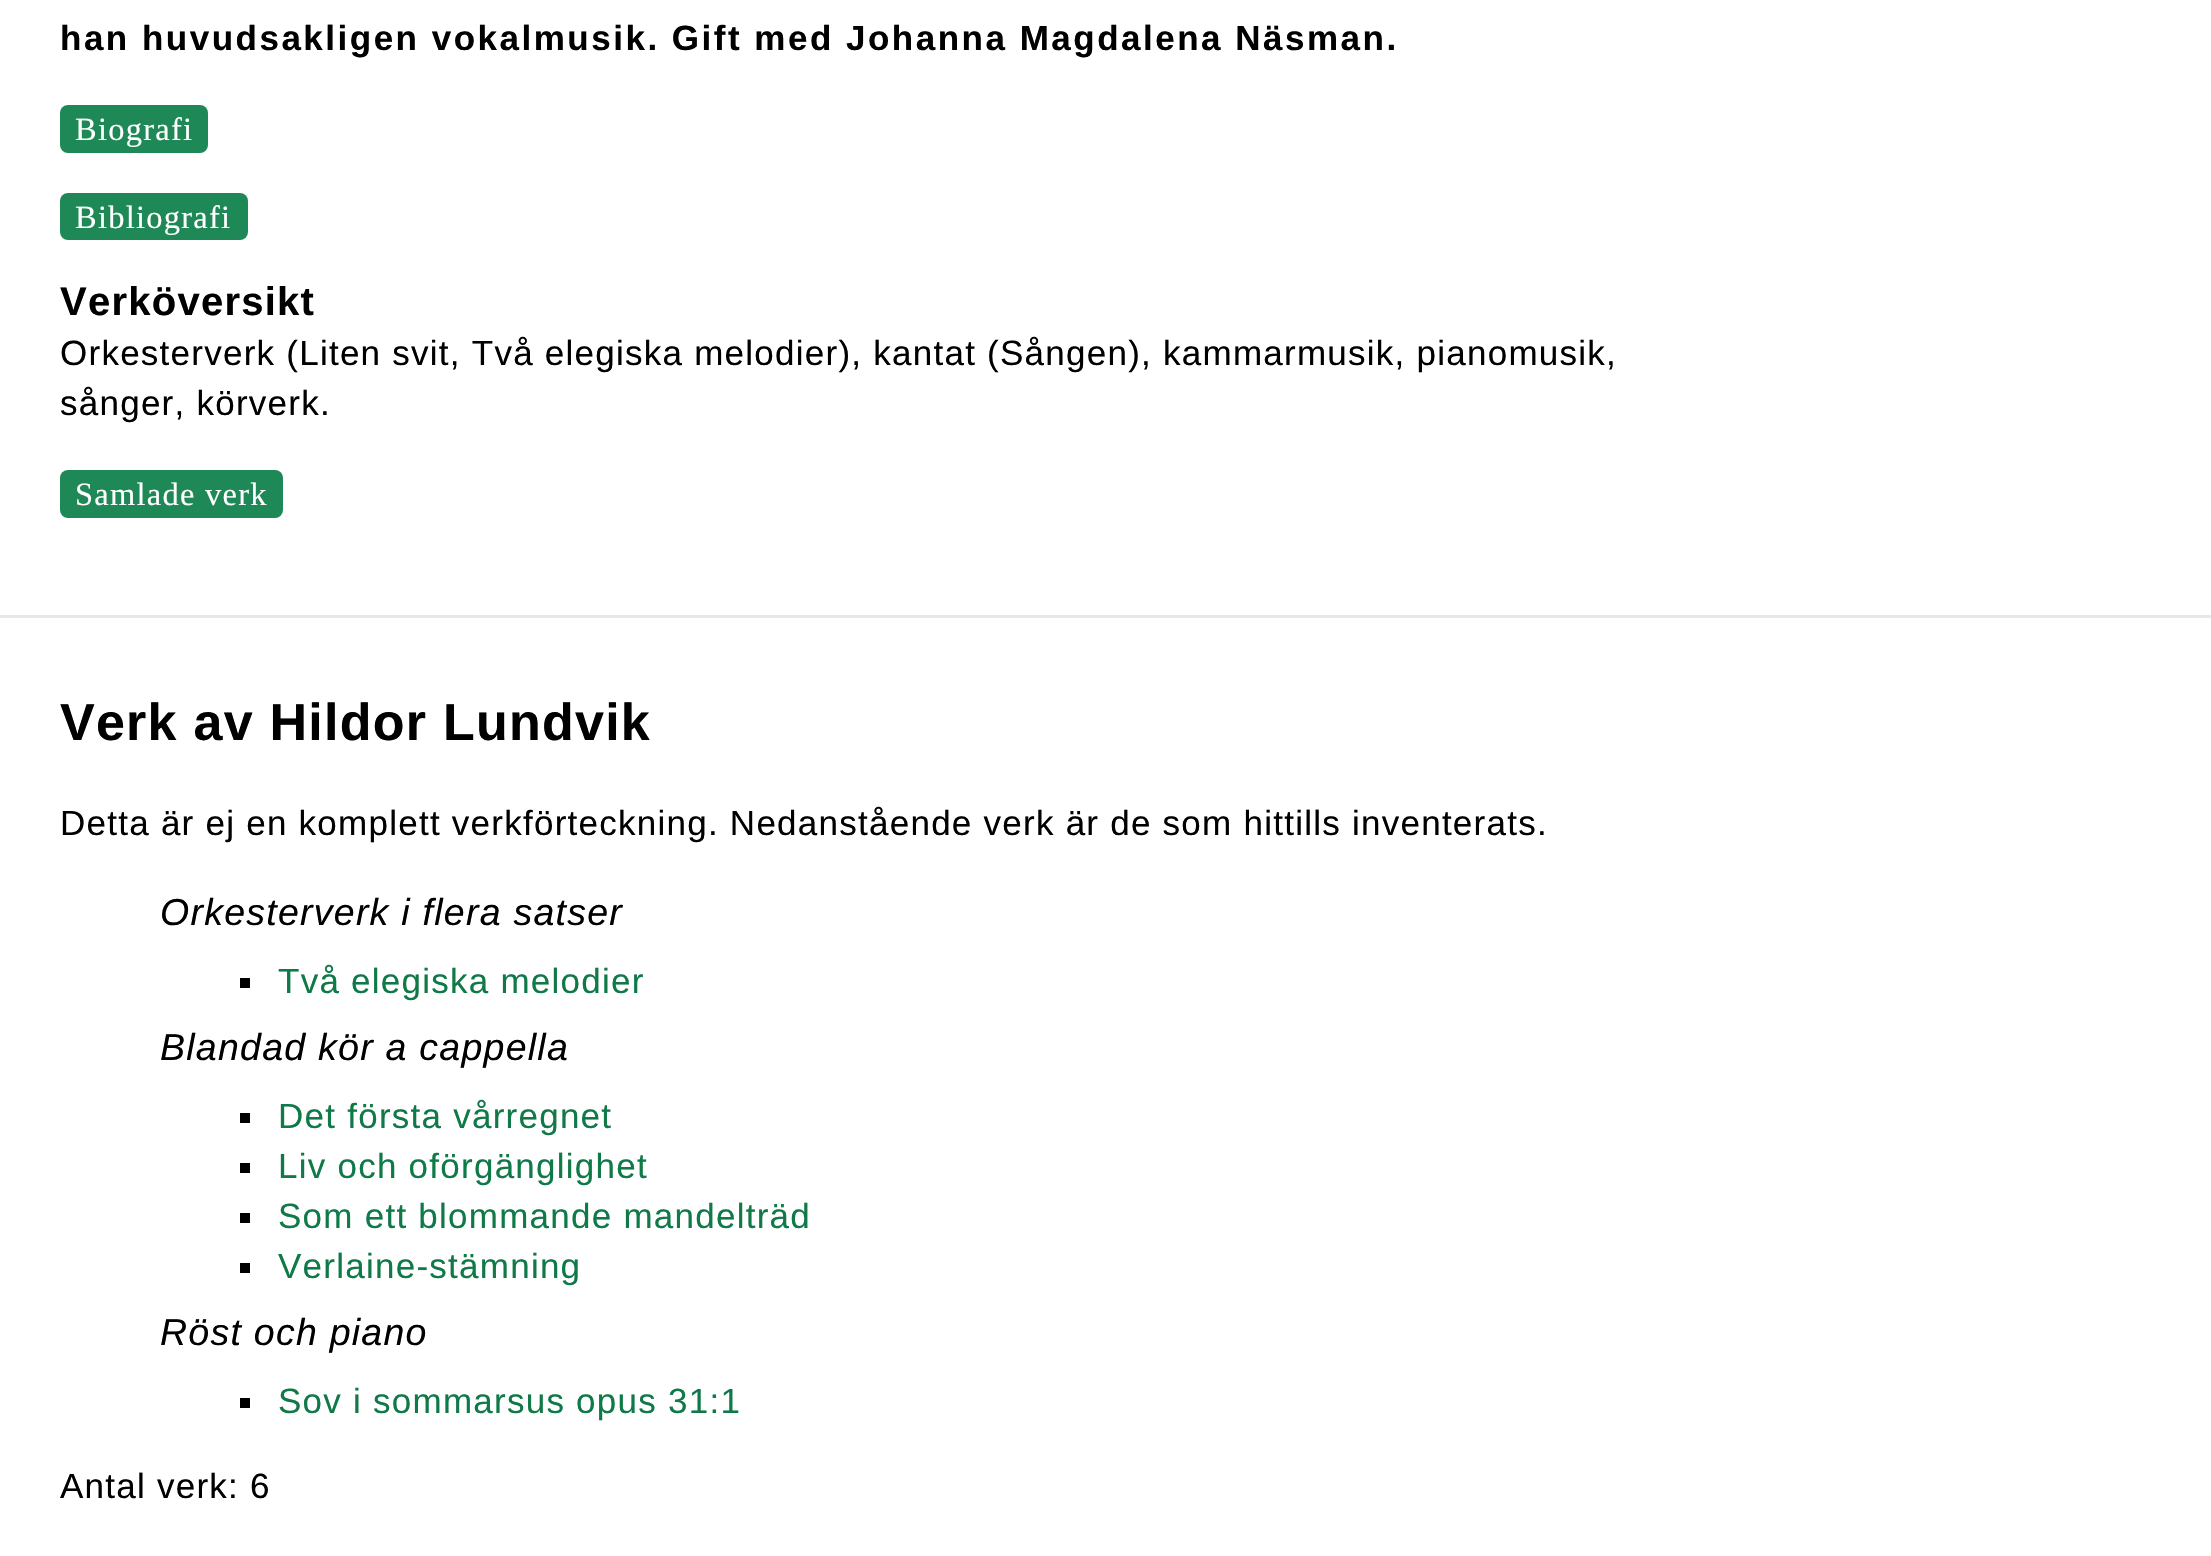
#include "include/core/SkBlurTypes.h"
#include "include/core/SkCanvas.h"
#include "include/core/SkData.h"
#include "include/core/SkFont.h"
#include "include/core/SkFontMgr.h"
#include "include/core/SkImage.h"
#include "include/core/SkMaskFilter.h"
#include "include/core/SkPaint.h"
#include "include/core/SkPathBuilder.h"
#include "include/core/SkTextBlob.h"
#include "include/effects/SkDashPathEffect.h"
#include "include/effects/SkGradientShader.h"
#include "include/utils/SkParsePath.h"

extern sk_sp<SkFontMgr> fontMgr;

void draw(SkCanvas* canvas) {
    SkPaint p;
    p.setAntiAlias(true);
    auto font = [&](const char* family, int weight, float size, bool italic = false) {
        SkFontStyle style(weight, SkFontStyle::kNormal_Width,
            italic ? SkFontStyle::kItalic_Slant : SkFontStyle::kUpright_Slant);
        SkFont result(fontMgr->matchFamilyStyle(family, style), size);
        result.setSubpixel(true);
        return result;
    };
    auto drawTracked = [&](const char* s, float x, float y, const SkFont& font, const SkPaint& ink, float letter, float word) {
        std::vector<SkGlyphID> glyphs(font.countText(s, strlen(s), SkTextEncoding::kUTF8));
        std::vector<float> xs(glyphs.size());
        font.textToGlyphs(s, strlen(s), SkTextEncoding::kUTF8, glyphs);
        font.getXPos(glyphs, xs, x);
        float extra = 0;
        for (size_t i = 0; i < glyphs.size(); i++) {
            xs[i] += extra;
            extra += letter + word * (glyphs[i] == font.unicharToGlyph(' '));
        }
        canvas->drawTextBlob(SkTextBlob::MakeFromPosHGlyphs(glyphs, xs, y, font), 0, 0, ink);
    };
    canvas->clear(0xFFFFFFFF);
    auto font1 = font("Liberation Sans", 700, 35);
    p.setColor(0xFF000000);
    drawTracked("han huvudsakligen vokalmusik. Gift med Johanna Magdalena Näsman.", 60, 50, font1, p, 2.5f, 0);
    p.setColor(0xFF1E8957);
    canvas->drawRoundRect(SkRect::MakeLTRB(60, 105, 208, 153), 8, 8, p);
    auto font2 = font("Liberation Serif", 400, 32.5f);
    p.setColor(0xFFFFFFFF);
    drawTracked("Biografi", 75, 140, font2, p, 1.25f, 0);
    p.setColor(0xFF1E8957);
    canvas->drawRoundRect(SkRect::MakeLTRB(60, 193, 248, 240), 8, 8, p);
    p.setColor(0xFFFFFFFF);
    drawTracked("Bibliografi", 75, 228, font2, p, 1.25f, 0);
    auto font3 = font("Liberation Sans", 700, 40);
    p.setColor(0xFF000000);
    drawTracked("Verköversikt", 60, 315, font3, p, 1.25f, 0);
    auto font4 = font("Liberation Sans", 400, 35);
    drawTracked("Orkesterverk (Liten svit, Två elegiska melodier), kantat (Sången), kammarmusik, pianomusik,", 60, 365, font4, p, 1.25f, 0);
    drawTracked("sånger, körverk.", 60, 415, font4, p, 1.25f, 0);
    p.setColor(0xFF1E8957);
    canvas->drawRoundRect(SkRect::MakeLTRB(60, 470, 283, 518), 8, 8, p);
    p.setColor(0xFFFFFFFF);
    drawTracked("Samlade verk", 75, 505, font2, p, 1.25f, 0);
    p.setColor(0xFFE5E7EB);
    canvas->drawRect(SkRect::MakeLTRB(0, 615, 2211, 618), p);
    auto font5 = font("Liberation Sans", 700, 52);
    p.setColor(0xFF000000);
    drawTracked("Verk av Hildor Lundvik", 60, 740, font5, p, 1.25f, 0);
    drawTracked("Detta är ej en komplett verkförteckning. Nedanstående verk är de som hittills inventerats.", 60, 835, font4, p, 1.25f, 0);
    auto font6 = font("Liberation Sans", 400, 37.5f, true);
    drawTracked("Orkesterverk i flera satser", 160, 925, font6, p, 1.25f, 0);
    canvas->drawRect(SkRect::MakeLTRB(240, 978, 250, 988), p);
    p.setColor(0xFF107948);
    drawTracked("Två elegiska melodier", 278, 993, font4, p, 1.25f, 0);
    p.setColor(0xFF000000);
    drawTracked("Blandad kör a cappella", 160, 1060, font6, p, 1.25f, 0);
    canvas->drawRect(SkRect::MakeLTRB(240, 1113, 250, 1123), p);
    p.setColor(0xFF107948);
    drawTracked("Det första vårregnet", 278, 1128, font4, p, 1.25f, 0);
    p.setColor(0xFF000000);
    canvas->drawRect(SkRect::MakeLTRB(240, 1163, 250, 1173), p);
    p.setColor(0xFF107948);
    drawTracked("Liv och oförgänglighet", 278, 1178, font4, p, 1.25f, 0);
    p.setColor(0xFF000000);
    canvas->drawRect(SkRect::MakeLTRB(240, 1213, 250, 1223), p);
    p.setColor(0xFF107948);
    drawTracked("Som ett blommande mandelträd", 278, 1228, font4, p, 1.25f, 0);
    p.setColor(0xFF000000);
    canvas->drawRect(SkRect::MakeLTRB(240, 1263, 250, 1273), p);
    p.setColor(0xFF107948);
    drawTracked("Verlaine-stämning", 278, 1278, font4, p, 1.25f, 0);
    p.setColor(0xFF000000);
    drawTracked("Röst och piano", 160, 1345, font6, p, 1.25f, 0);
    canvas->drawRect(SkRect::MakeLTRB(240, 1398, 250, 1408), p);
    p.setColor(0xFF107948);
    drawTracked("Sov i sommarsus opus 31:1", 278, 1413, font4, p, 1.25f, 0);
    p.setColor(0xFF000000);
    drawTracked("Antal verk: 6", 60, 1498, font4, p, 1.25f, 0);
}
